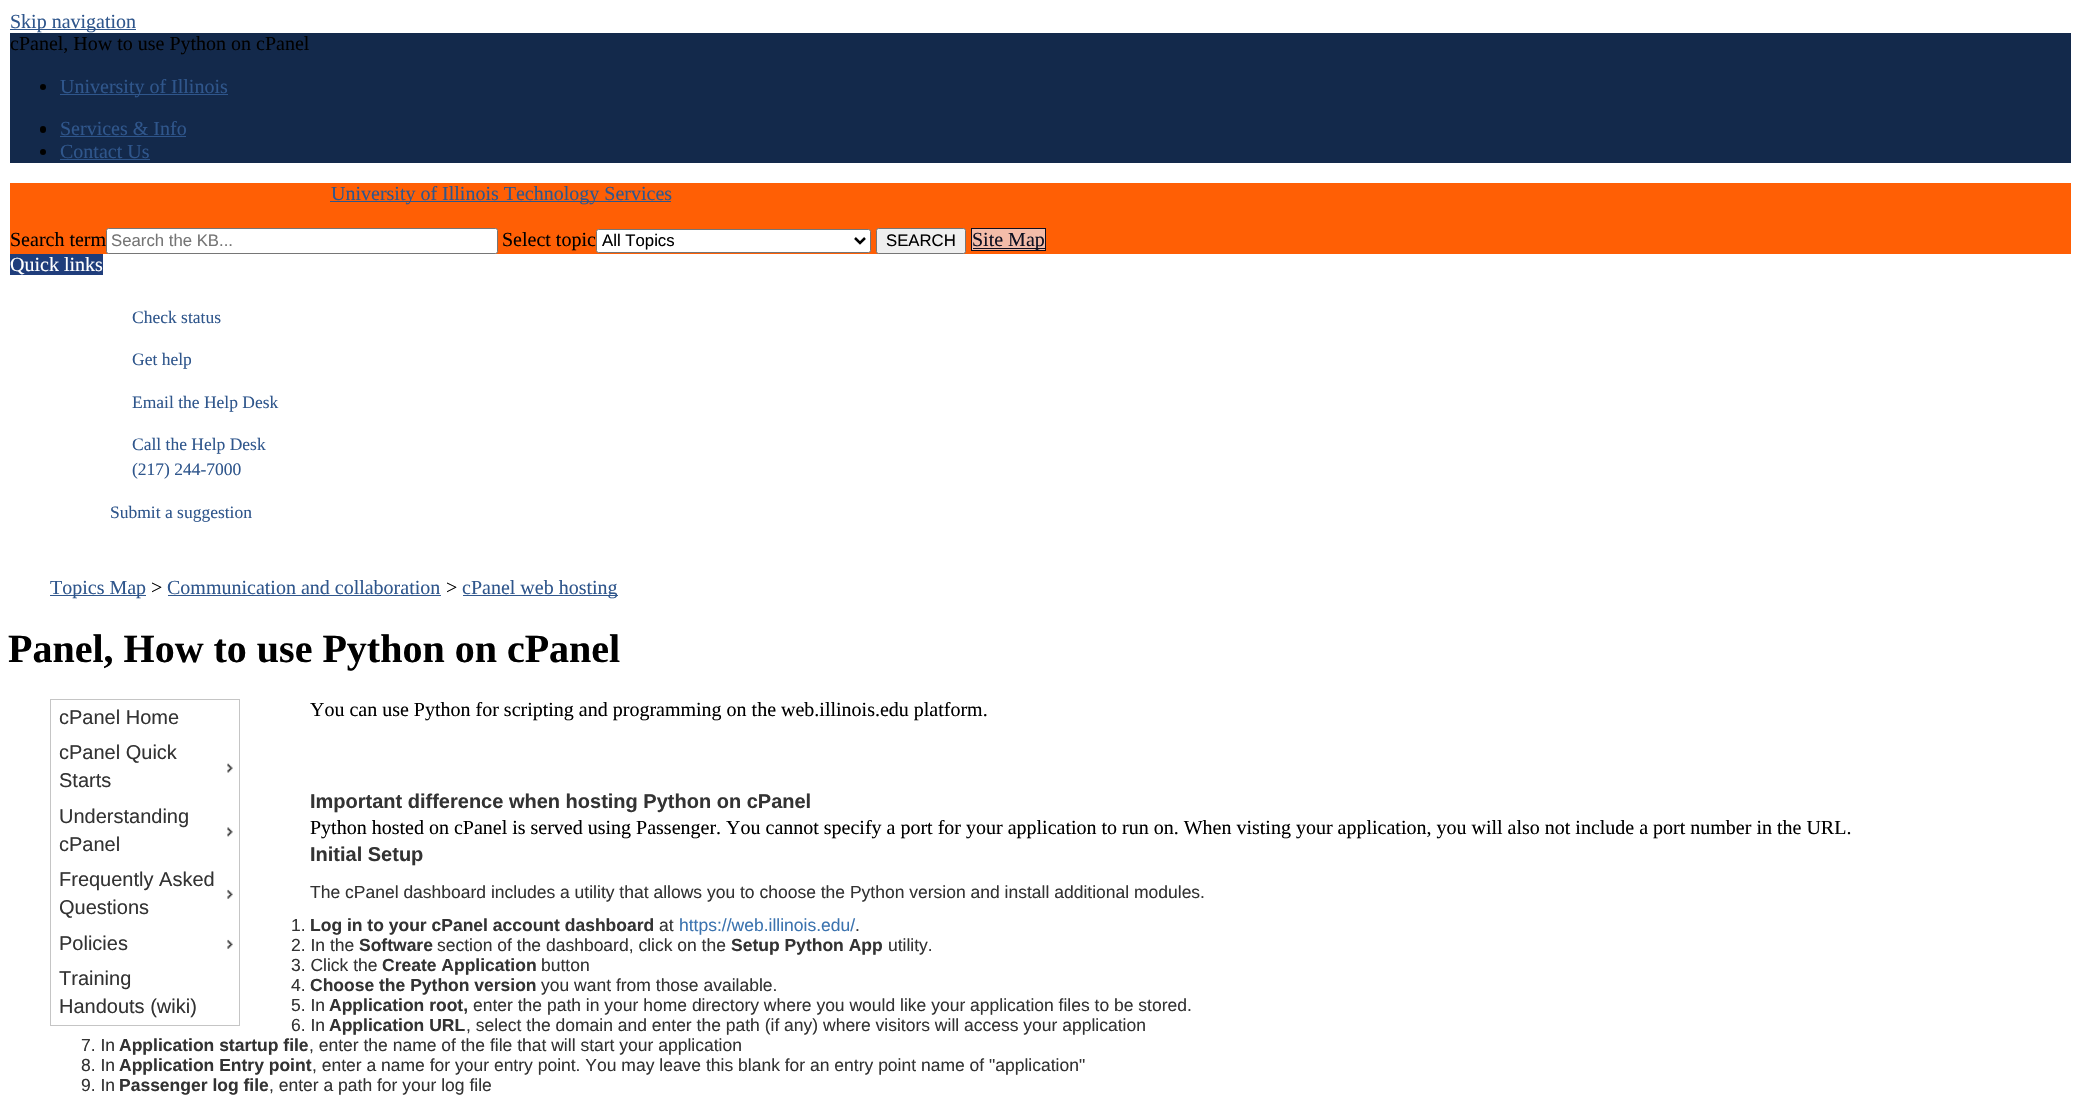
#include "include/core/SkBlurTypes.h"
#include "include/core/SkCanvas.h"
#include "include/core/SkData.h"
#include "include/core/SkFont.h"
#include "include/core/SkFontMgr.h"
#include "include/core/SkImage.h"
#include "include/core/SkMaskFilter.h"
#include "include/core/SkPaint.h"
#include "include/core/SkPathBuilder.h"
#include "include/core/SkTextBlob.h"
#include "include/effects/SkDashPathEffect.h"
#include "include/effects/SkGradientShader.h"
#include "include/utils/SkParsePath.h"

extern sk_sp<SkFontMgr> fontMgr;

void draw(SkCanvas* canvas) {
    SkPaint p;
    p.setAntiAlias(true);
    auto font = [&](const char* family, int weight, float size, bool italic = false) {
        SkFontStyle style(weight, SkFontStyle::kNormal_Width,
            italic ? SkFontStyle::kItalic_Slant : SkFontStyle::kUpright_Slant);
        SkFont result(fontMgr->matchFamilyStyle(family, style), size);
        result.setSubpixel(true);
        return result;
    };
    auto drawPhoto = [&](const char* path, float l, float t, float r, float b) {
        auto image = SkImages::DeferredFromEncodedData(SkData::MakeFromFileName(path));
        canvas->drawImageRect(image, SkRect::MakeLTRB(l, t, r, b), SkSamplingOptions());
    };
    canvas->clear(0xFFFFFFFF);
    p.setColor(0xFF2F568C);
    canvas->drawRect(SkRect::MakeLTRB(10, 29, 136, 30), p);
    auto font1 = font("Liberation Serif", 400, 20);
    canvas->drawString("Skip navigation", 10, 28, font1, p);
    p.setColor(0xFF13294B);
    canvas->drawRect(SkRect::MakeLTRB(10, 33, 2071, 163), p);
    p.setColor(0xFF000000);
    canvas->drawString("cPanel, How to use Python on cPanel", 10, 50, font1, p);
    canvas->drawCircle(43, 87, 3, p);
    p.setColor(0xFF2F568C);
    canvas->drawRect(SkRect::MakeLTRB(60, 94, 228, 95), p);
    canvas->drawString("University of Illinois", 60, 93, font1, p);
    p.setColor(0xFF000000);
    canvas->drawRoundRect(SkRect::MakeLTRB(40, 126, 46, 133), 3, 3, p);
    p.setColor(0xFF2F568C);
    canvas->drawString("Services & Info", 60, 135, font1, p);
    canvas->drawRect(SkRect::MakeLTRB(60, 136, 186, 137), p);
    p.setColor(0xFF000000);
    canvas->drawCircle(43, 152, 3, p);
    p.setColor(0xFF2F568C);
    canvas->drawString("Contact Us", 60, 158, font1, p);
    {
        const struct { float l, t, r, b; SkColor color; } items[] = {
            {60, 159, 150, 160, 0xFF2F568C},
            {10, 183, 2071, 254, 0xFFFF5F05},
            {330, 201, 671, 202, 0xFF2F568C},
        };
        for (auto [l, t, r, b, color] : items) {
            p.setColor(color);
            canvas->drawRect(SkRect::MakeLTRB(l, t, r, b), p);
        }
    }
    canvas->drawString("University of Illinois Technology Services", 331, 200, font1, p);
    p.setColor(0xFF000000);
    canvas->drawString("Search term", 10, 246, font1, p);
    p.setColor(0xFFFFFFFF);
    canvas->drawRoundRect(SkRect::MakeLTRB(106.5f, 228.5f, 497.5f, 253.5f), 2, 2, p);
    p.setStyle(SkPaint::kStroke_Style);
    p.setStrokeWidth(1);
    p.setColor(0xFF767676);
    canvas->drawRoundRect(SkRect::MakeLTRB(106.5f, 228.5f, 497.5f, 253.5f), 2, 2, p);
    auto font2 = font("Liberation Sans", 400, 16.75f);
    p.setStyle(SkPaint::kFill_Style);
    p.setColor(0xFF757575);
    canvas->drawString("Search the KB...", 111, 246, font2, p);
    p.setColor(0xFF000000);
    canvas->drawString("Select topic", 502, 246, font1, p);
    p.setColor(0xFFFFFFFF);
    canvas->drawRoundRect(SkRect::MakeLTRB(596.5f, 229.5f, 870.5f, 252.5f), 2, 2, p);
    p.setStyle(SkPaint::kStroke_Style);
    p.setColor(0xFF767676);
    canvas->drawRoundRect(SkRect::MakeLTRB(596.5f, 229.5f, 870.5f, 252.5f), 2, 2, p);
    p.setStrokeWidth(2.5f);
    p.setColor(0xFF000000);
    canvas->drawPath(SkPathBuilder().moveTo(855, 238).lineTo(860, 243).lineTo(865, 238).detach(), p);
    p.setStyle(SkPaint::kFill_Style);
    canvas->drawString("All Topics", 602, 246, font2, p);
    p.setColor(0xFFEFEFEF);
    canvas->drawRoundRect(SkRect::MakeLTRB(876.5f, 228.5f, 965.5f, 253.5f), 2, 2, p);
    p.setStyle(SkPaint::kStroke_Style);
    p.setStrokeWidth(1);
    p.setColor(0xFF767676);
    canvas->drawRoundRect(SkRect::MakeLTRB(876.5f, 228.5f, 965.5f, 253.5f), 2, 2, p);
    p.setStyle(SkPaint::kFill_Style);
    p.setColor(0xFF000000);
    canvas->drawString("SEARCH", 886, 246, font2, p);
    p.setColor(0xFFF4BCA9);
    canvas->drawRect(SkRect::MakeLTRB(971.5f, 228.5f, 1045.5f, 250.5f), p);
    p.setStyle(SkPaint::kStroke_Style);
    p.setColor(0xFF0E0F20);
    canvas->drawRect(SkRect::MakeLTRB(971.5f, 228.5f, 1045.5f, 250.5f), p);
    p.setStyle(SkPaint::kFill_Style);
    canvas->drawRect(SkRect::MakeLTRB(973, 248, 1045, 249), p);
    canvas->drawString("Site Map", 972, 246, font1, p);
    p.setColor(0xFF1F3D7B);
    canvas->drawRect(SkRect::MakeLTRB(10, 254, 103, 275), p);
    p.setColor(0xFFFFFFFF);
    canvas->drawString("Quick links", 10, 271, font1, p);
    auto font3 = font("Liberation Serif", 400, 17.5f);
    p.setColor(0xFF2F568C);
    {
        const struct { const char* s; float x, y; } items[] = {
            {"Check status", 132, 323},
            {"Get help", 132, 365},
            {"Email the Help Desk", 132, 408},
            {"Call the Help Desk", 132, 450},
            {"(217) 244-7000", 132, 475},
            {"Submit a suggestion", 110, 518},
        };
        for (auto [s, x, y] : items) {
            canvas->drawString(s, x, y, font3, p);
        }
    }
    canvas->drawRect(SkRect::MakeLTRB(50, 595, 146, 596), p);
    canvas->drawString("Topics Map", 50, 594, font1, p);
    p.setColor(0xFF000000);
    canvas->drawString(">", 151, 594, font1, p);
    p.setColor(0xFF2F568C);
    canvas->drawString("Communication and collaboration", 167, 594, font1, p);
    canvas->drawRect(SkRect::MakeLTRB(168, 595, 441, 596), p);
    p.setColor(0xFF000000);
    canvas->drawString(">", 446, 594, font1, p);
    p.setColor(0xFF2F568C);
    canvas->drawRect(SkRect::MakeLTRB(463, 595, 618, 596), p);
    canvas->drawString("cPanel web hosting", 462, 594, font1, p);
    auto font4 = font("Liberation Serif", 700, 40);
    p.setColor(0xFF000000);
    canvas->drawString("Panel, How to use Python on cPanel", 8, 662, font4, p);
    p.setStyle(SkPaint::kStroke_Style);
    p.setColor(0xFFC5C5C5);
    canvas->drawRect(SkRect::MakeLTRB(50.5f, 699.5f, 239.5f, 1025.5f), p);
    auto font5 = font("Liberation Sans", 400, 20);
    p.setStyle(SkPaint::kFill_Style);
    p.setColor(0xFF333333);
    canvas->drawString("cPanel Home", 59, 724, font5, p);
    canvas->drawString("cPanel Quick", 59, 759, font5, p);
    drawPhoto("media/1.png", 227, 763, 233, 773);
    canvas->drawString("Starts", 59, 787, font5, p);
    canvas->drawString("Understanding", 59, 823, font5, p);
    drawPhoto("media/2.png", 227, 827, 233, 837);
    canvas->drawString("cPanel", 59, 851, font5, p);
    canvas->drawString("Frequently Asked", 59, 886, font5, p);
    drawPhoto("media/3.png", 227, 889, 233, 899);
    canvas->drawString("Questions", 59, 914, font5, p);
    canvas->drawString("Policies", 59, 950, font5, p);
    drawPhoto("media/3.png", 227, 939, 233, 949);
    canvas->drawString("Training", 59, 985, font5, p);
    canvas->drawString("Handouts (wiki)", 59, 1013, font5, p);
    p.setColor(0xFF000000);
    canvas->drawString("You can use Python for scripting and programming on the web.illinois.edu platform.", 310, 716, font1, p);
    auto font6 = font("Liberation Sans", 700, 20);
    p.setColor(0xFF333333);
    canvas->drawString("Important difference when hosting Python on cPanel", 310, 808, font6, p);
    p.setColor(0xFF000000);
    canvas->drawString("Python hosted on cPanel is served using Passenger. You cannot specify a port for your application to run on. When visting your application, you will also not include a port number in the URL.", 310, 834, font1, p);
    p.setColor(0xFF333333);
    canvas->drawString("Initial Setup", 310, 861, font6, p);
    auto font7 = font("Liberation Sans", 400, 17.5f);
    canvas->drawString("The cPanel dashboard includes a utility that allows you to choose the Python version and install additional modules.", 310, 898, font7, p);
    canvas->drawString("1.", 291, 931, font7, p);
    auto font8 = font("Liberation Sans", 700, 17.5f);
    canvas->drawString("Log in to your cPanel account dashboard", 310, 931, font8, p);
    canvas->drawString("at", 659, 931, font7, p);
    p.setColor(0xFF3B73AF);
    canvas->drawString("https://web.illinois.edu/", 679, 931, font7, p);
    p.setColor(0xFF333333);
    canvas->drawString(".", 855, 931, font7, p);
    canvas->drawString("2. In the", 291, 951, font7, p);
    canvas->drawString("Software", 359, 951, font8, p);
    canvas->drawString("section of the dashboard, click on the", 437, 951, font7, p);
    canvas->drawString("Setup Python App", 731, 951, font8, p);
    canvas->drawString("utility.", 888, 951, font7, p);
    canvas->drawString("3. Click the", 291, 971, font7, p);
    canvas->drawString("Create Application", 382, 971, font8, p);
    canvas->drawString("button", 541, 971, font7, p);
    canvas->drawString("4.", 291, 991, font7, p);
    canvas->drawString("Choose the Python version", 310, 991, font8, p);
    canvas->drawString("you want from those available.", 541, 991, font7, p);
    canvas->drawString("5. In", 291, 1011, font7, p);
    canvas->drawString("Application root,", 329, 1011, font8, p);
    canvas->drawString("enter the path in your home directory where you would like your application files to be stored.", 473, 1011, font7, p);
    canvas->drawString("6. In", 291, 1031, font7, p);
    canvas->drawString("Application URL", 329, 1031, font8, p);
    canvas->drawString(", select the domain and enter the path (if any) where visitors will access your application", 466, 1031, font7, p);
    canvas->drawString("7. In", 81, 1051, font7, p);
    canvas->drawString("Application startup file", 119, 1051, font8, p);
    canvas->drawString(", enter the name of the file that will start your application", 309, 1051, font7, p);
    canvas->drawString("8. In", 81, 1071, font7, p);
    canvas->drawString("Application Entry point", 119, 1071, font8, p);
    canvas->drawString(", enter a name for your entry point. You may leave this blank for an entry point name of \"application\"", 312, 1071, font7, p);
    canvas->drawString("9. In", 81, 1091, font7, p);
    canvas->drawString("Passenger log file", 119, 1091, font8, p);
    canvas->drawString(", enter a path for your log file", 269, 1091, font7, p);
}
